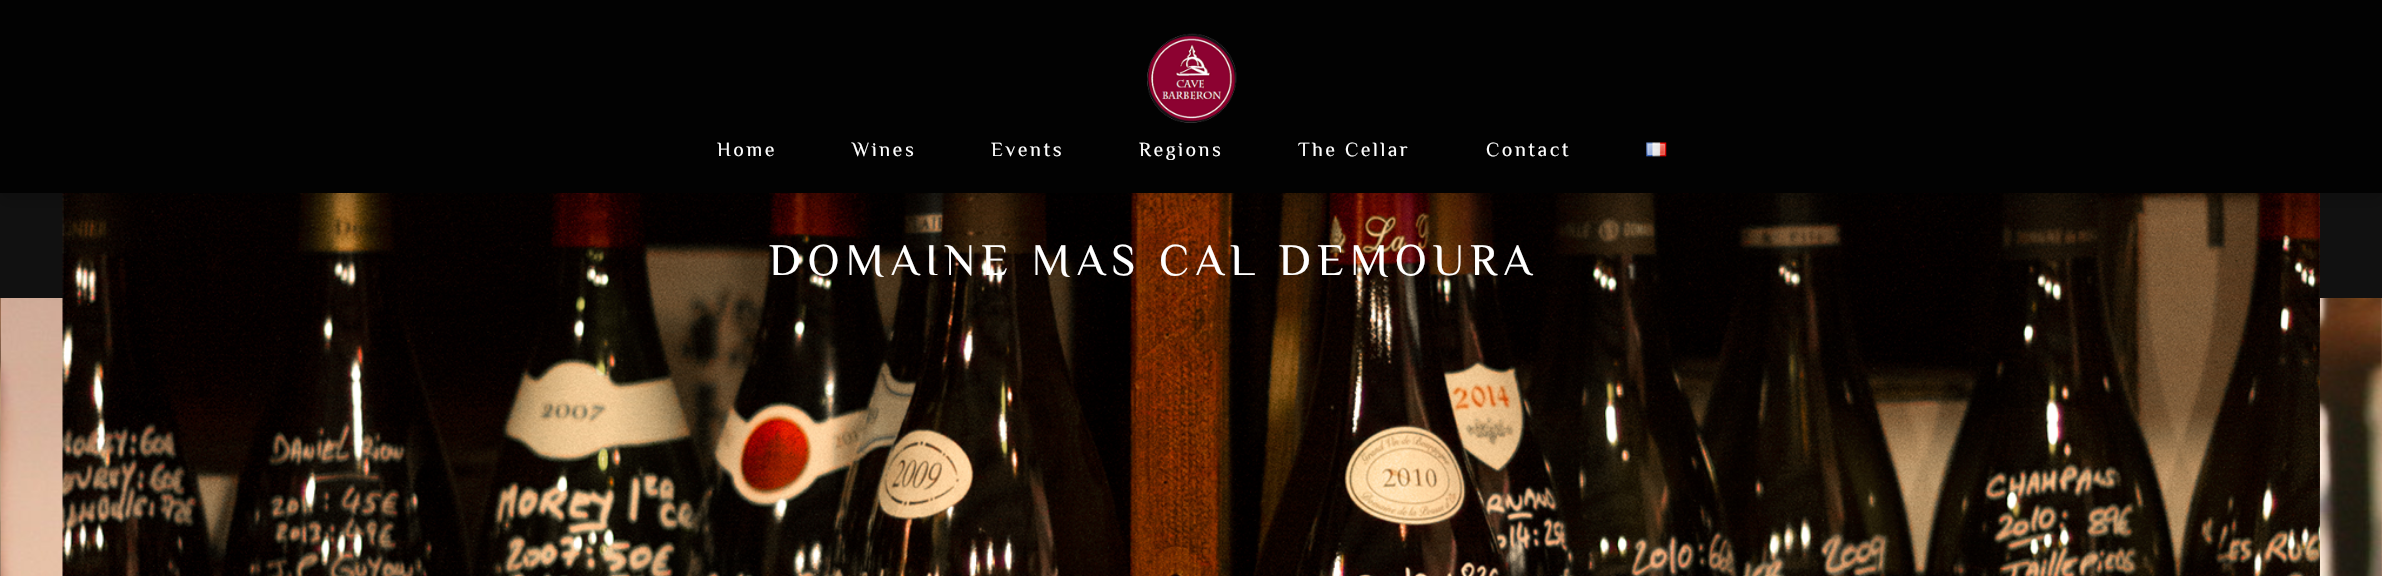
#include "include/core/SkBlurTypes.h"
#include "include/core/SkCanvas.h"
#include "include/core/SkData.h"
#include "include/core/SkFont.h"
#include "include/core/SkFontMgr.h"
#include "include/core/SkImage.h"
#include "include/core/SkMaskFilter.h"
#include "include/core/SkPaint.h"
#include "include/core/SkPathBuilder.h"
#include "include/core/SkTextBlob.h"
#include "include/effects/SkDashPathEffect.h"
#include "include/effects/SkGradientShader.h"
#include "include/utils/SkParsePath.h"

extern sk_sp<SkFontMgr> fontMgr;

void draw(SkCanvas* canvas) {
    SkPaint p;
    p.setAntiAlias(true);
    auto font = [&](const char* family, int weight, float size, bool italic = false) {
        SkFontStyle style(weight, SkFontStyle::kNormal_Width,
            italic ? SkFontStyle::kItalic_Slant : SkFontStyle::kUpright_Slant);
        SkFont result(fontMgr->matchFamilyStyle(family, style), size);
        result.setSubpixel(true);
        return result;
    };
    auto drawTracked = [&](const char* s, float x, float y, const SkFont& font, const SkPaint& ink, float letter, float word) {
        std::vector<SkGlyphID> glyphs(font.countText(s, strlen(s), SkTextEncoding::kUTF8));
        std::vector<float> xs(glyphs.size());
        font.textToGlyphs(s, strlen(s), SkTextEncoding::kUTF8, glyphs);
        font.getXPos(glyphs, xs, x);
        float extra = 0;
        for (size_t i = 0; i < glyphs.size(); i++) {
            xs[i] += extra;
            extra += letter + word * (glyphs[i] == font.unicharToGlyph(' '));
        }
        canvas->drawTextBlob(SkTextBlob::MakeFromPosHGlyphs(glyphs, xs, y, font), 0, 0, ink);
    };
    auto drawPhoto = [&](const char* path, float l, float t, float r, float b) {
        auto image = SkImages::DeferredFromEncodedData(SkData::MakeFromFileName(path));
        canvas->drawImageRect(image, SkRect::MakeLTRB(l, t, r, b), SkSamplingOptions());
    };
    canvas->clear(0xFFFFFFFF);
    drawPhoto("media/1.png", 0, 298, 2382, 576);
    p.setColor(0xFF111111);
    canvas->drawRect(SkRect::MakeLTRB(0, 193, 2382, 298), p);
    drawPhoto("media/4.png", 62, 193, 2320, 576);
    p.setColor(0x2E000000);
    p.setMaskFilter(SkMaskFilter::MakeBlur(kNormal_SkBlurStyle, 7.5f));
    canvas->drawRect(SkRect::MakeLTRB(0, 8, 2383, 200), p);
    p.setMaskFilter(nullptr);
    p.setColor(0xFF020202);
    canvas->drawRect(SkRect::MakeLTRB(0, 0, 2382, 193), p);
    drawPhoto("media/2.png", 1147, 33, 1237, 123);
    auto font1 = font("Philosopher", 400, 20);
    p.setColor(0xFFFFFFFF);
    {
        const struct { const char* s; float x, y; } items[] = {
            {"Home", 717, 156},
            {"Wines", 852, 156},
            {"Events", 991, 156},
            {"Regions", 1139, 156},
            {"The Cellar", 1298, 156},
            {"Contact", 1486, 156},
        };
        for (auto [s, x, y] : items) {
            drawTracked(s, x, y, font1, p, 2.5f, 0);
        }
    }
    drawPhoto("media/3.png", 1646, 142, 1667, 157);
    auto font2 = font("Philosopher", 400, 45);
    drawTracked("DOMAINE MAS CAL DEMOURA", 769, 275, font2, p, 6.25f, 0);
}
